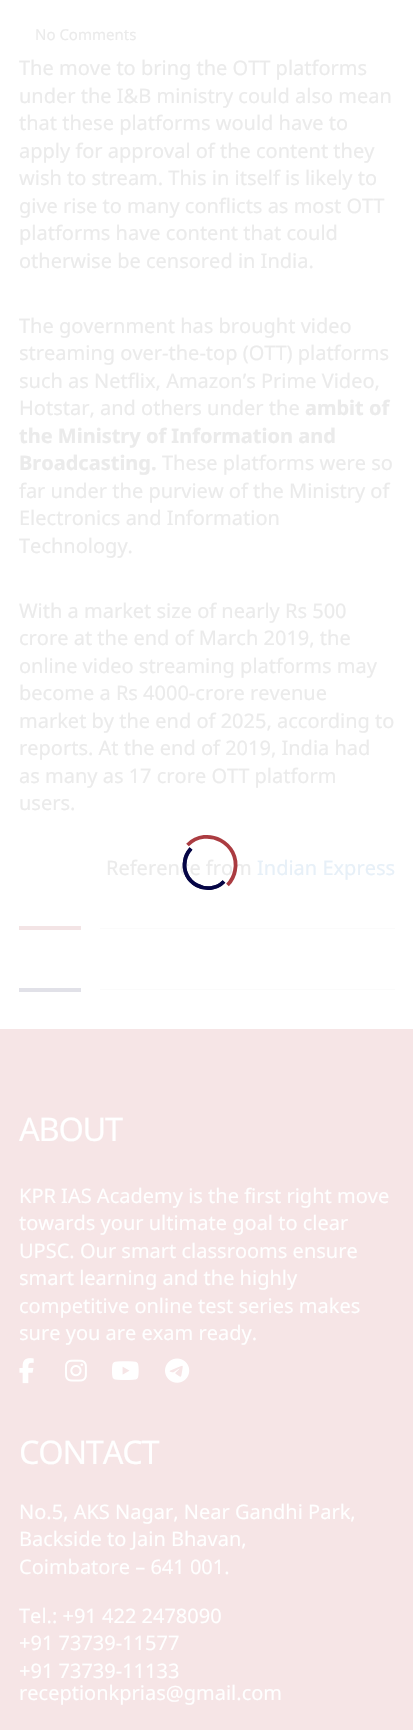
#include "include/core/SkBlurTypes.h"
#include "include/core/SkCanvas.h"
#include "include/core/SkData.h"
#include "include/core/SkFont.h"
#include "include/core/SkFontMgr.h"
#include "include/core/SkImage.h"
#include "include/core/SkMaskFilter.h"
#include "include/core/SkPaint.h"
#include "include/core/SkPathBuilder.h"
#include "include/core/SkTextBlob.h"
#include "include/effects/SkDashPathEffect.h"
#include "include/effects/SkGradientShader.h"
#include "include/utils/SkParsePath.h"

extern sk_sp<SkFontMgr> fontMgr;

void draw(SkCanvas* canvas) {
    SkPaint p;
    p.setAntiAlias(true);
    auto font = [&](const char* family, int weight, float size, bool italic = false) {
        SkFontStyle style(weight, SkFontStyle::kNormal_Width,
            italic ? SkFontStyle::kItalic_Slant : SkFontStyle::kUpright_Slant);
        SkFont result(fontMgr->matchFamilyStyle(family, style), size);
        result.setSubpixel(true);
        return result;
    };
    auto drawTracked = [&](const char* s, float x, float y, const SkFont& font, const SkPaint& ink, float letter, float word) {
        std::vector<SkGlyphID> glyphs(font.countText(s, strlen(s), SkTextEncoding::kUTF8));
        std::vector<float> xs(glyphs.size());
        font.textToGlyphs(s, strlen(s), SkTextEncoding::kUTF8, glyphs);
        font.getXPos(glyphs, xs, x);
        float extra = 0;
        for (size_t i = 0; i < glyphs.size(); i++) {
            xs[i] += extra;
            extra += letter + word * (glyphs[i] == font.unicharToGlyph(' '));
        }
        canvas->drawTextBlob(SkTextBlob::MakeFromPosHGlyphs(glyphs, xs, y, font), 0, 0, ink);
    };
    auto drawPhoto = [&](const char* path, float l, float t, float r, float b) {
        auto image = SkImages::DeferredFromEncodedData(SkData::MakeFromFileName(path));
        canvas->drawImageRect(image, SkRect::MakeLTRB(l, t, r, b), SkSamplingOptions());
    };
    canvas->clear(0xFFFFFFFF);
    auto font1 = font("Noto Sans", 400, 15);
    p.setColor(0xFFEBEBEB);
    canvas->drawString("No Comments", 35, 40, font1, p);
    auto font2 = font("Noto Sans", 400, 20);
    {
        const struct { const char* s; float x, y; } items[] = {
            {"The move to bring the OTT platforms", 19, 75},
            {"under the I&B ministry could also mean", 19, 103},
            {"that these platforms would have to", 19, 130},
            {"apply for approval of the content they", 19, 158},
            {"wish to stream. This in itself is likely to", 19, 185},
            {"give rise to many conflicts as most OTT", 19, 213},
            {"platforms have content that could", 19, 240},
            {"otherwise be censored in India.", 19, 268},
            {"The government has brought video", 19, 333},
            {"streaming over-the-top (OTT) platforms", 19, 360},
            {"such as Netflix, Amazon’s Prime Video,", 19, 388},
            {"Hotstar, and others under the", 19, 415},
        };
        for (auto [s, x, y] : items) {
            canvas->drawString(s, x, y, font2, p);
        }
    }
    auto font3 = font("Noto Sans", 700, 20);
    {
        const struct { const char* s; float x, y; } items[] = {
            {"ambit of", 305, 415},
            {"the Ministry of Information and", 19, 443},
            {"Broadcasting.", 19, 470},
        };
        for (auto [s, x, y] : items) {
            canvas->drawString(s, x, y, font3, p);
        }
    }
    {
        const struct { const char* s; float x, y; } items[] = {
            {"These platforms were so", 162, 470},
            {"far under the purview of the Ministry of", 19, 498},
            {"Electronics and Information", 19, 525},
            {"Technology.", 19, 553},
            {"With a market size of nearly Rs 500", 19, 618},
            {"crore at the end of March 2019, the", 19, 645},
            {"online video streaming platforms may", 19, 673},
            {"become a Rs 4000-crore revenue", 19, 700},
            {"market by the end of 2025, according to", 19, 728},
            {"reports. At the end of 2019, India had", 19, 755},
            {"as many as 17 crore OTT platform", 19, 783},
            {"users.", 19, 810},
            {"Reference from", 106, 875},
        };
        for (auto [s, x, y] : items) {
            canvas->drawString(s, x, y, font2, p);
        }
    }
    p.setColor(0xFFE7F0F8);
    canvas->drawString("Indian Express", 257, 875, font2, p);
    {
        const struct { float l, t, r, b; SkColor color; } items[] = {
            {19, 926, 81, 930, 0xFFF3E4E5},
            {100, 928, 395, 929, 0xFFFBFBFB},
            {19, 988, 81, 992, 0xFFE1E1E8},
            {100, 989, 395, 990, 0xFFFBFBFB},
        };
        for (auto [l, t, r, b, color] : items) {
            p.setColor(color);
            canvas->drawRect(SkRect::MakeLTRB(l, t, r, b), p);
        }
    }
    p.setStyle(SkPaint::kStroke_Style);
    p.setStrokeWidth(3.8f);
    p.setColor(0xE09F2127);
    canvas->drawPath(SkPathBuilder().moveTo(187.5f, 845).cubicTo(207, 825.5f, 240.5f, 843.5f, 235, 870.5f).cubicTo(234, 876, 231.5f, 881, 227.5f, 885).detach(), p);
    p.setColor(0xE0010142);
    canvas->drawPath(SkPathBuilder().moveTo(224, 881.5f).cubicTo(208, 897.5f, 180.5f, 882.5f, 185, 860.5f).cubicTo(185.5f, 856, 188, 852, 191, 848.5f).detach(), p);
    canvas->drawPath(SkPathBuilder().moveTo(224, 881.5f).cubicTo(208, 897.5f, 180.5f, 882.5f, 185, 860.5f).cubicTo(185.5f, 856, 188, 852, 191, 848.5f).detach(), p);
    p.setStyle(SkPaint::kFill_Style);
    p.setColor(0xFFF6E5E6);
    canvas->drawRect(SkRect::MakeLTRB(0, 1029, 413, 1730), p);
    auto font4 = font("Noto Sans", 400, 32.5f);
    p.setColor(0xFFFFFFFF);
    drawTracked("ABOUT", 19, 1141, font4, p, -1.25f, 0);
    {
        const struct { const char* s; float x, y; } items[] = {
            {"KPR IAS Academy is the first right move", 19, 1203},
            {"towards your ultimate goal to clear", 19, 1230},
            {"UPSC. Our smart classrooms ensure", 19, 1258},
            {"smart learning and the highly", 19, 1285},
            {"competitive online test series makes", 19, 1313},
            {"sure you are exam ready.", 19, 1340},
        };
        for (auto [s, x, y] : items) {
            canvas->drawString(s, x, y, font2, p);
        }
    }
    drawPhoto("media/1.png", 19, 1358, 34, 1384);
    drawPhoto("media/2.png", 65, 1359, 87, 1382);
    drawPhoto("media/3.png", 112, 1361, 139, 1380);
    drawPhoto("media/4.png", 165, 1358, 190, 1383);
    drawTracked("CONTACT", 19, 1464, font4, p, -1.25f, 0);
    {
        const struct { const char* s; float x, y; } items[] = {
            {"No.5, AKS Nagar, Near Gandhi Park,", 19, 1519},
            {"Backside to Jain Bhavan,", 19, 1546},
            {"Coimbatore – 641 001.", 19, 1574},
            {"Tel.: +91 422 2478090", 19, 1623},
            {"+91 73739-11577", 19, 1650},
            {"+91 73739-11133", 19, 1678},
            {"receptionkprias@gmail.com", 19, 1700},
        };
        for (auto [s, x, y] : items) {
            canvas->drawString(s, x, y, font2, p);
        }
    }
}
